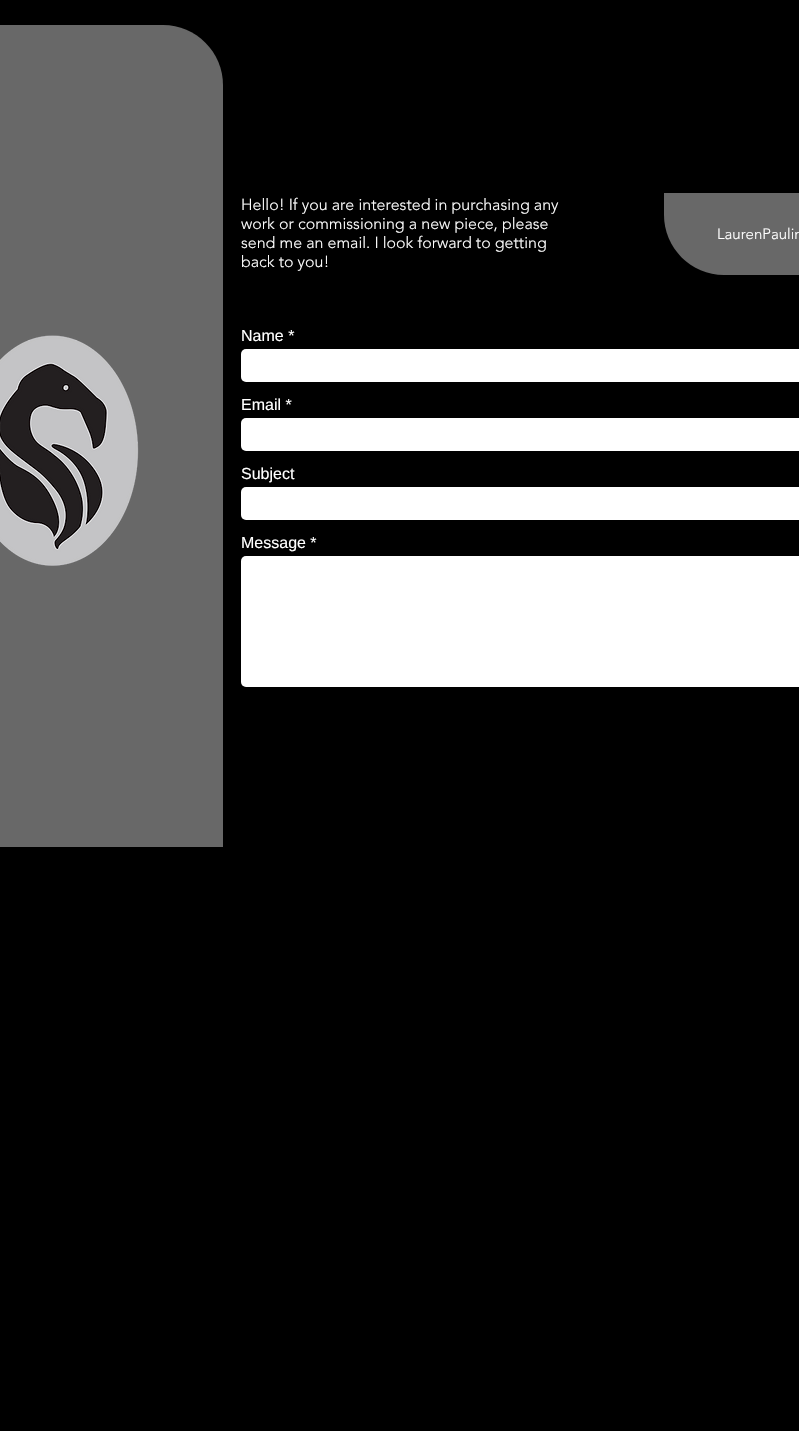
#include "include/core/SkBlurTypes.h"
#include "include/core/SkCanvas.h"
#include "include/core/SkData.h"
#include "include/core/SkFont.h"
#include "include/core/SkFontMgr.h"
#include "include/core/SkImage.h"
#include "include/core/SkMaskFilter.h"
#include "include/core/SkPaint.h"
#include "include/core/SkPathBuilder.h"
#include "include/core/SkTextBlob.h"
#include "include/effects/SkDashPathEffect.h"
#include "include/effects/SkGradientShader.h"
#include "include/utils/SkParsePath.h"

extern sk_sp<SkFontMgr> fontMgr;

void draw(SkCanvas* canvas) {
    SkPaint p;
    p.setAntiAlias(true);
    auto font = [&](const char* family, int weight, float size, bool italic = false) {
        SkFontStyle style(weight, SkFontStyle::kNormal_Width,
            italic ? SkFontStyle::kItalic_Slant : SkFontStyle::kUpright_Slant);
        SkFont result(fontMgr->matchFamilyStyle(family, style), size);
        result.setSubpixel(true);
        return result;
    };
    auto drawPhoto = [&](const char* path, float l, float t, float r, float b) {
        auto image = SkImages::DeferredFromEncodedData(SkData::MakeFromFileName(path));
        canvas->drawImageRect(image, SkRect::MakeLTRB(l, t, r, b), SkSamplingOptions());
    };
    canvas->clear(0xFF000000);
    p.setColor(0xFF686868);
    canvas->drawPath(SkPathBuilder().moveTo(0, 25).lineTo(163, 25).cubicTo(196, 25, 223, 52, 223, 85).lineTo(223, 847).lineTo(0, 847).close().detach(), p);
    auto font1 = font("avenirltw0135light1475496", 300, 16);
    p.setColor(0xFFFFFFFF);
    {
        const struct { const char* s; float x, y; } items[] = {
            {"Hello! If you are interested in purchasing any", 241, 210},
            {"work or commissioning a new piece, please", 241, 229},
            {"send me an email. I look forward to getting", 241, 248},
            {"back to you!", 241, 267},
        };
        for (auto [s, x, y] : items) {
            canvas->drawString(s, x, y, font1, p);
        }
    }
    p.setColor(0xFF686868);
    canvas->drawPath(SkPathBuilder().moveTo(664, 193).lineTo(799, 193).cubicTo(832, 193, 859, 220, 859, 253).lineTo(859, 275).lineTo(724, 275).cubicTo(691, 275, 664, 248, 664, 215).close().detach(), p);
    auto font2 = font("avenirltw0135light1475496", 300, 15);
    p.setColor(0xFFFFFFFF);
    canvas->drawString("LaurenPaulin", 717, 239, font2, p);
    drawPhoto("media/1.png", 0, 335, 139, 566);
    auto font3 = font("Liberation Sans", 400, 16);
    canvas->drawString("Name *", 241, 341, font3, p);
    canvas->drawRoundRect(SkRect::MakeLTRB(241, 349, 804, 382), 5, 5, p);
    canvas->drawString("Email *", 241, 410, font3, p);
    canvas->drawRoundRect(SkRect::MakeLTRB(241, 418, 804, 451), 5, 5, p);
    canvas->drawString("Subject", 241, 479, font3, p);
    canvas->drawRoundRect(SkRect::MakeLTRB(241, 487, 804, 520), 5, 5, p);
    canvas->drawString("Message *", 241, 548, font3, p);
    canvas->drawRoundRect(SkRect::MakeLTRB(241, 556, 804, 687), 5, 5, p);
}
